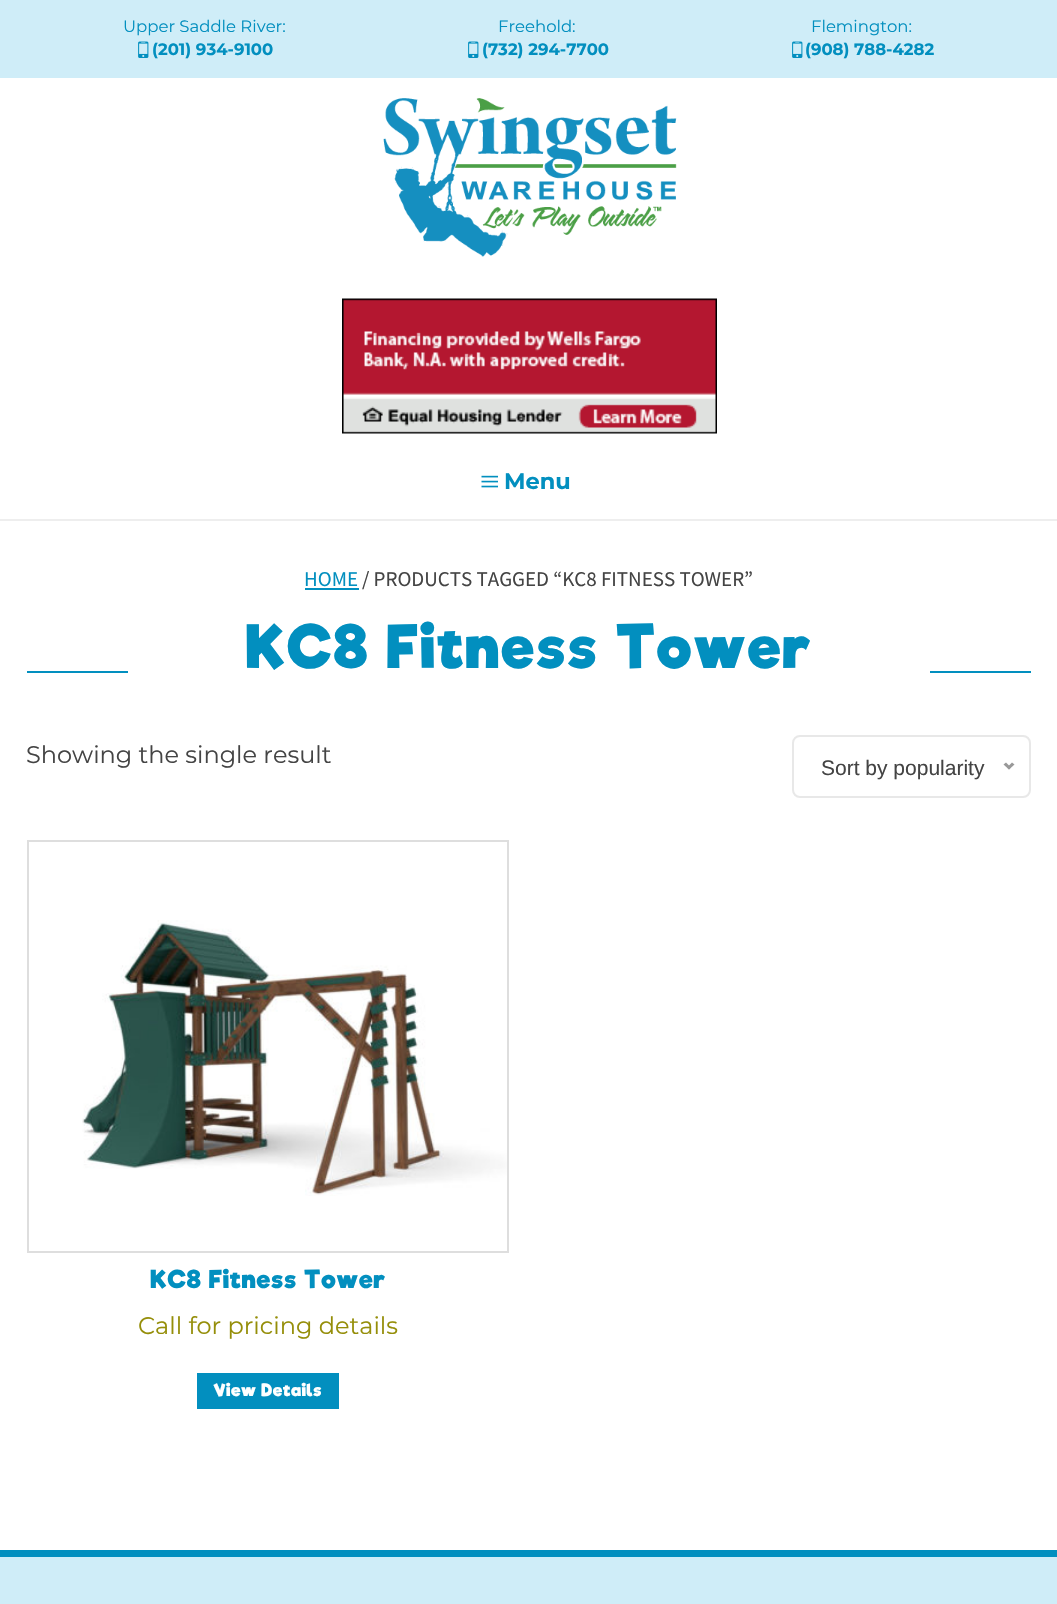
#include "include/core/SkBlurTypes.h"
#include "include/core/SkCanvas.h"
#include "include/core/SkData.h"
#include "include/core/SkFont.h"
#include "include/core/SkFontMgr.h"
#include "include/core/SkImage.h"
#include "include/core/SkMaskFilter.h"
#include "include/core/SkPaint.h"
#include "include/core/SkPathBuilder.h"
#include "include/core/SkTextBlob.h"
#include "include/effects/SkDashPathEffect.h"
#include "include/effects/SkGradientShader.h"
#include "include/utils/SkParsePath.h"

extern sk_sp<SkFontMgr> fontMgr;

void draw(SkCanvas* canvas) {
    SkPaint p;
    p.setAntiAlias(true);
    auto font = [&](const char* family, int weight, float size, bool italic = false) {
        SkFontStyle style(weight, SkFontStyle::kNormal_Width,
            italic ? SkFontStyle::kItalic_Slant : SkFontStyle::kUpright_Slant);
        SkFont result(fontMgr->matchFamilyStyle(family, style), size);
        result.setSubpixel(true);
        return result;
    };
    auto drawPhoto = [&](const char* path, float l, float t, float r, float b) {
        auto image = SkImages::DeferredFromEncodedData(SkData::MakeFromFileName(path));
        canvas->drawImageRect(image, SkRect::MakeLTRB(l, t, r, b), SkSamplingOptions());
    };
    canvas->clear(0xFFFFFFFF);
    p.setColor(0xFFEEEEEE);
    canvas->drawRect(SkRect::MakeLTRB(0, 519, 1057, 521), p);
    p.setColor(0xFFCFEDF8);
    canvas->drawRect(SkRect::MakeLTRB(0, 0, 1057, 78), p);
    auto font1 = font("Montserrat", 400, 16.5f);
    p.setColor(0xFF028FBF);
    canvas->drawString("Upper Saddle River:", 123, 32, font1, p);
    drawPhoto("media/1.png", 138, 41, 149, 58);
    auto font2 = font("Montserrat", 700, 16.5f);
    canvas->drawString("(201) 934-9100", 152, 55, font2, p);
    canvas->drawString("Freehold:", 498, 32, font1, p);
    drawPhoto("media/1.png", 468, 41, 479, 58);
    canvas->drawString("(732) 294-7700", 482, 55, font2, p);
    canvas->drawString("Flemington:", 811, 32, font1, p);
    drawPhoto("media/1.png", 792, 41, 803, 58);
    canvas->drawString("(908) 788-4282", 805, 55, font2, p);
    drawPhoto("media/2.png", 383, 98, 677, 257);
    drawPhoto("media/3.png", 342, 298, 717, 434);
    drawPhoto("media/4.png", 481, 475, 498, 488);
    auto font3 = font("Montserrat", 700, 22.5f);
    canvas->drawString("Menu", 504, 489, font3, p);
    auto font4 = font("Source Sans Pro", 400, 21);
    canvas->drawString("HOME", 304, 586, font4, p);
    canvas->drawRect(SkRect::MakeLTRB(305, 588, 359, 590), p);
    p.setColor(0xFF444444);
    canvas->drawString("/ PRODUCTS TAGGED “KC8 FITNESS TOWER”", 362, 586, font4, p);
    p.setColor(0xFF028FBF);
    canvas->drawRect(SkRect::MakeLTRB(27, 671, 1031, 673), p);
    p.setColor(0xFFFFFFFF);
    canvas->drawRect(SkRect::MakeLTRB(128, 671, 930, 673), p);
    auto font5 = font("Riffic", 700, 57.75f);
    p.setColor(0xFF028FBF);
    canvas->drawString("KC8 Fitness Tower", 245, 668, font5, p);
    auto font6 = font("Montserrat", 400, 24);
    p.setColor(0xFF444444);
    canvas->drawString("Showing the single result", 26, 763, font6, p);
    p.setStyle(SkPaint::kStroke_Style);
    p.setStrokeWidth(2);
    p.setColor(0xFFE8E8E8);
    canvas->drawRoundRect(SkRect::MakeLTRB(793, 736, 1030, 797), 7, 7, p);
    auto font7 = font("Liberation Sans", 400, 21);
    p.setStyle(SkPaint::kFill_Style);
    p.setColor(0xFF444444);
    canvas->drawString("Sort by popularity", 821, 775, font7, p);
    p.setColor(0xFF999999);
    canvas->drawPath(SkPathBuilder().moveTo(1012, 762.5f).lineTo(1014.5f, 764.5f).lineTo(1009, 769.5f).lineTo(1007, 767.5f).close().detach(), p);
    canvas->drawPath(SkPathBuilder().moveTo(1006, 762.5f).lineTo(1011, 767.5f).lineTo(1009, 769.5f).lineTo(1003.5f, 764.5f).close().detach(), p);
    drawPhoto("media/5.png", 82, 920, 507, 1196);
    p.setStyle(SkPaint::kStroke_Style);
    p.setColor(0xFFDEDEDE);
    canvas->drawRect(SkRect::MakeLTRB(28, 841, 508, 1252), p);
    auto font8 = font("Riffic", 700, 24);
    p.setStyle(SkPaint::kFill_Style);
    p.setColor(0xFF028FBF);
    canvas->drawString("KC8 Fitness Tower", 150, 1288, font8, p);
    p.setColor(0xFF958E09);
    canvas->drawString("Call for pricing details", 138, 1334, font6, p);
    p.setColor(0xFF028FBF);
    canvas->drawRect(SkRect::MakeLTRB(197, 1373, 339, 1409), p);
    auto font9 = font("Riffic", 700, 16.5f);
    p.setColor(0xFFFFFFFF);
    canvas->drawString("View Details", 213, 1396, font9, p);
    p.setColor(0xFFCFEDF8);
    canvas->drawRect(SkRect::MakeLTRB(0, 1557, 1057, 1604), p);
    p.setColor(0xFF028FBF);
    canvas->drawRect(SkRect::MakeLTRB(0, 1550, 1057, 1557), p);
}
